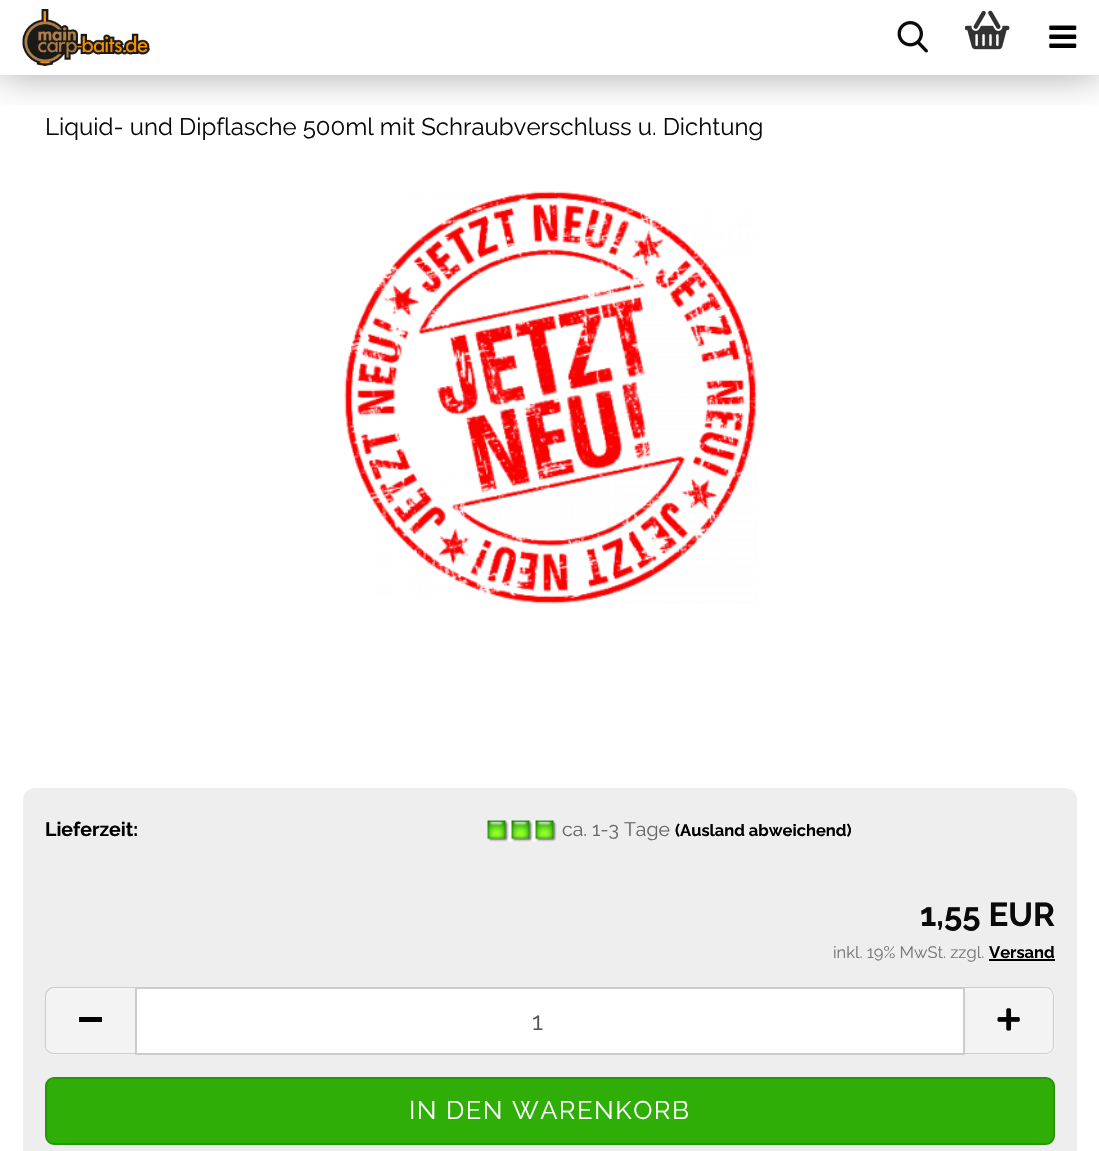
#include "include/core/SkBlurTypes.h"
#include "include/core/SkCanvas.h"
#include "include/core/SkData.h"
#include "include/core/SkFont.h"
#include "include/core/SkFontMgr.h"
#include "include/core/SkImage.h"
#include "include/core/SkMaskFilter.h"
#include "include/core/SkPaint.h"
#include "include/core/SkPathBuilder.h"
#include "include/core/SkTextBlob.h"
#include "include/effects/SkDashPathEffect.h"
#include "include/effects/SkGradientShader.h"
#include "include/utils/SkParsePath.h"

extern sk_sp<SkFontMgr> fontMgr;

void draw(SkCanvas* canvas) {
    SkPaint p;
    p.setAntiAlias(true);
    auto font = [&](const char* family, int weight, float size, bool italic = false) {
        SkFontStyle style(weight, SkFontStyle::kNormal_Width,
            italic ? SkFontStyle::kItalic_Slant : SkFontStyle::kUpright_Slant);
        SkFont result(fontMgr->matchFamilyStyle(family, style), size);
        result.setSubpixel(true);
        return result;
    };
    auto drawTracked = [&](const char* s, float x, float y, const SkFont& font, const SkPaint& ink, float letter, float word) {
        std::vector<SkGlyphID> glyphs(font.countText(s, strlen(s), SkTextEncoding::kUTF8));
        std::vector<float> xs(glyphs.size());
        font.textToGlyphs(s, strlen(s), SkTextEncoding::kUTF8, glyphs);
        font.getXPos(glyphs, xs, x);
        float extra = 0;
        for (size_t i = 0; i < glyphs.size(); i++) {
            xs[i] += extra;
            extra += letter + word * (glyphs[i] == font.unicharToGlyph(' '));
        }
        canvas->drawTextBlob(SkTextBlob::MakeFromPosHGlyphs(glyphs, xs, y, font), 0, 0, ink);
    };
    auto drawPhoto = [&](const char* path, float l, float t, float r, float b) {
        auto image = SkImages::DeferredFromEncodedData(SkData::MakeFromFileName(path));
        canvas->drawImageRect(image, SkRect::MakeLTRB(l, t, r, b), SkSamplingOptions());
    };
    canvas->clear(0xFFFFFFFF);
    canvas->save();
    canvas->clipRect(SkRect::MakeLTRB(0, 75, 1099, 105));
    p.setColor(0x59000000);
    p.setMaskFilter(SkMaskFilter::MakeBlur(kNormal_SkBlurStyle, 19));
    canvas->drawRect(SkRect::MakeLTRB(0, 0, 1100, 75), p);
    p.setMaskFilter(nullptr);
    canvas->restore();
    drawPhoto("media/1.png", 22, 9, 150, 66);
    drawPhoto("media/2.png", 897, 21, 928, 53);
    drawPhoto("media/3.png", 965, 10, 1010, 50);
    drawPhoto("media/4.png", 1049, 25, 1077, 48);
    auto font1 = font("Raleway", 100, 24);
    p.setColor(0xFF0A0A0A);
    canvas->drawString("Liquid- und Dipflasche 500ml mit Schraubverschluss u. Dichtung", 45, 135, font1, p);
    drawPhoto("media/5.png", 344, 191, 757, 604);
    p.setColor(0xFFEEEEEE);
    canvas->drawRoundRect(SkRect::MakeLTRB(23, 788, 1077, 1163), 12, 12, p);
    auto font2 = font("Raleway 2", 100, 19.5f);
    p.setColor(0xFF000000);
    canvas->drawString("Lieferzeit:", 45, 836, font2, p);
    drawPhoto("media/6.png", 487, 820, 557, 842);
    auto font3 = font("Raleway", 100, 19.5f);
    p.setColor(0xFF666666);
    canvas->drawString("ca. 1-3 Tage", 562, 836, font3, p);
    auto font4 = font("Raleway 2", 100, 16.5f);
    p.setColor(0xFF000000);
    canvas->drawString("(Ausland abweichend)", 675, 836, font4, p);
    auto font5 = font("Raleway 2", 100, 33);
    p.setColor(0xFF0A0A0A);
    canvas->drawString("1,55 EUR", 920, 926, font5, p);
    auto font6 = font("Raleway", 100, 16.5f);
    p.setColor(0xFF777777);
    canvas->drawString("inkl. 19% MwSt. zzgl.", 833, 958, font6, p);
    p.setColor(0xFF000000);
    canvas->drawString("Versand", 989, 958, font4, p);
    canvas->drawRect(SkRect::MakeLTRB(989, 959, 1055, 961), p);
    p.setColor(0xFFF3F3F3);
    canvas->drawPath(SkPathBuilder().moveTo(54, 987).lineTo(135, 987).lineTo(135, 1055).lineTo(54, 1055).cubicTo(49, 1055, 45, 1051, 45, 1046).lineTo(45, 996).cubicTo(45, 991, 49, 987, 54, 987).close().detach(), p);
    p.setColor(0xFFCCCCCC);
    canvas->drawPath(SkPathBuilder(SkPathFillType::kEvenOdd).moveTo(54, 987).lineTo(135, 987).lineTo(135, 1054).lineTo(54, 1054).cubicTo(49, 1054, 45, 1050, 45, 1046).lineTo(45, 996).cubicTo(45, 991, 49, 987, 54, 987).close().moveTo(54, 988).lineTo(135, 988).lineTo(135, 1053).lineTo(54, 1053).cubicTo(50, 1053, 46, 1050, 46, 1046).lineTo(46, 996).cubicTo(46, 992, 50, 988, 54, 988).close().detach(), p);
    p.setColor(0xFF000000);
    canvas->drawRect(SkRect::MakeLTRB(79, 1017, 102, 1022), p);
    p.setColor(0xFFF3F3F3);
    canvas->drawPath(SkPathBuilder().moveTo(965, 987).lineTo(1046, 987).cubicTo(1051, 987, 1055, 991, 1055, 996).lineTo(1055, 1046).cubicTo(1055, 1051, 1051, 1055, 1046, 1055).lineTo(965, 1055).close().detach(), p);
    p.setColor(0xFFCCCCCC);
    canvas->drawPath(SkPathBuilder(SkPathFillType::kEvenOdd).moveTo(964, 987).lineTo(1046, 987).cubicTo(1050, 987, 1054, 991, 1054, 996).lineTo(1054, 1046).cubicTo(1054, 1050, 1050, 1054, 1046, 1054).lineTo(964, 1054).close().moveTo(964, 988).lineTo(1046, 988).cubicTo(1050, 988, 1053, 992, 1053, 996).lineTo(1053, 1046).cubicTo(1053, 1050, 1050, 1053, 1046, 1053).lineTo(964, 1053).close().detach(), p);
    p.setColor(0xFFFFFFFF);
    canvas->drawRect(SkRect::MakeLTRB(136, 988, 964, 1054), p);
    p.setStyle(SkPaint::kStroke_Style);
    p.setStrokeWidth(2);
    p.setColor(0xFFCCCCCC);
    canvas->drawRect(SkRect::MakeLTRB(136, 988, 964, 1054), p);
    auto font7 = font("Raleway", 100, 25.5f);
    p.setStyle(SkPaint::kFill_Style);
    p.setColor(0xFF555555);
    canvas->drawString("1", 532, 1030, font7, p);
    drawPhoto("media/7.png", 997, 1008, 1020, 1031);
    p.setColor(0xFF2EAE06);
    canvas->drawRoundRect(SkRect::MakeLTRB(46, 1078, 1054, 1144), 8, 8, p);
    p.setStyle(SkPaint::kStroke_Style);
    p.setColor(0xFF279505);
    canvas->drawRoundRect(SkRect::MakeLTRB(46, 1078, 1054, 1144), 8, 8, p);
    p.setStyle(SkPaint::kFill_Style);
    p.setColor(0xFFFFFFFF);
    drawTracked("IN DEN WARENKORB", 409, 1119, font7, p, 1.5f, 0);
}
